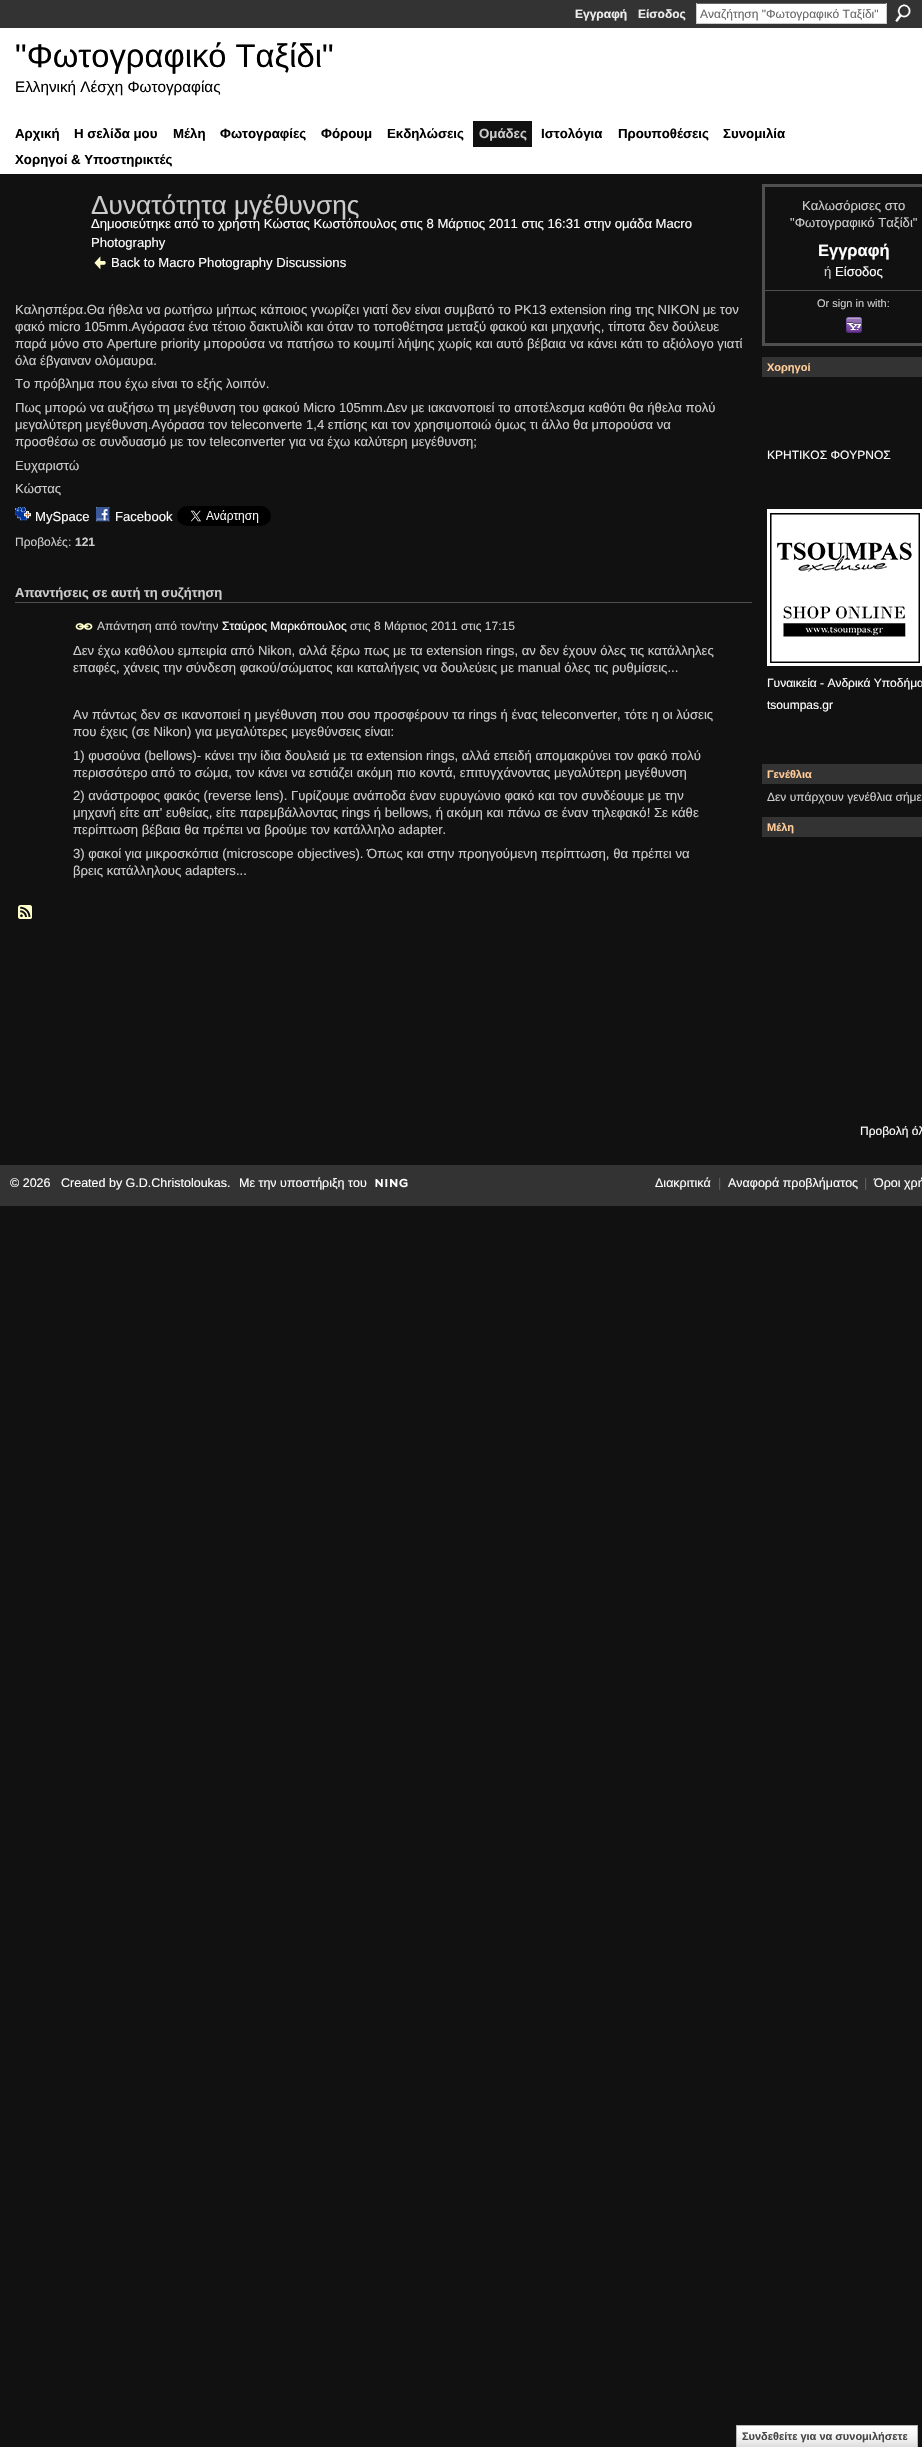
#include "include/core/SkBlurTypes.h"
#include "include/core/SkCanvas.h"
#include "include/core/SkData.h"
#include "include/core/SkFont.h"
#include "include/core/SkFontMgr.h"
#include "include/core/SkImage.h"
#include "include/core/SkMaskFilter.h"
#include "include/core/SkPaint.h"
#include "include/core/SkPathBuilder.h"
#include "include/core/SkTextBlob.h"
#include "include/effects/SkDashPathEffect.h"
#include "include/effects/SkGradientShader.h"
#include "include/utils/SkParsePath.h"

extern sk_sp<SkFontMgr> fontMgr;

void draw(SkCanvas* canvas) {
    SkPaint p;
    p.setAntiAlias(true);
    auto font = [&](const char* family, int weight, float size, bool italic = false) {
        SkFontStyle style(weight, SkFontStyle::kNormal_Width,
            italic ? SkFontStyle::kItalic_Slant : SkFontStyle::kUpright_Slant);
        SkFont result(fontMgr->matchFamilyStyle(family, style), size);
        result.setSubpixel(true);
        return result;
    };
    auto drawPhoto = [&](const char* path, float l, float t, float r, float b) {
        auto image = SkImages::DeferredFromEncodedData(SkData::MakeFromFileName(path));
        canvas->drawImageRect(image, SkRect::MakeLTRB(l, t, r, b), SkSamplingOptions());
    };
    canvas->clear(0xFF111111);
    p.setColor(0xFF333333);
    canvas->drawRect(SkRect::MakeLTRB(0, 0, 922, 28), p);
    auto font1 = font("Liberation Sans", 700, 12);
    p.setColor(0xFFEEEEEE);
    canvas->drawString("Εγγραφή", 575, 18, font1, p);
    canvas->drawString("Είσοδος", 638, 18, font1, p);
    {
        const struct { float l, t, r, b; SkColor color; } items[] = {
            {697, 4, 886, 23, 0xFFFFFFFF},
            {696, 3, 887, 4, 0xFF666666},
            {886, 3, 887, 24, 0xFFCCCCCC},
            {696, 23, 887, 24, 0xFFCCCCCC},
            {696, 3, 697, 24, 0xFFCCCCCC},
        };
        for (auto [l, t, r, b, color] : items) {
            p.setColor(color);
            canvas->drawRect(SkRect::MakeLTRB(l, t, r, b), p);
        }
    }
    auto font2 = font("Liberation Sans", 400, 12);
    p.setColor(0xFF666666);
    canvas->drawString("Αναζήτηση \"Φωτογραφικό Ταξίδι\"", 700, 18, font2, p);
    drawPhoto("media/1.png", 895, 4, 911, 22);
    p.setColor(0xFFFFFFFF);
    canvas->drawRect(SkRect::MakeLTRB(0, 28, 922, 174), p);
    auto font3 = font("Liberation Sans", 400, 32.75f);
    p.setColor(0xFF000000);
    canvas->drawString("\"Φωτογραφικό Ταξίδι\"", 15, 67, font3, p);
    auto font4 = font("Liberation Sans", 400, 15.25f);
    canvas->drawString("Ελληνική Λέσχη Φωτογραφίας", 15, 92, font4, p);
    auto font5 = font("Liberation Sans", 700, 13.25f);
    {
        const struct { const char* s; float x, y; } items[] = {
            {"Αρχική", 15, 138},
            {"Η σελίδα μου", 74, 138},
            {"Μέλη", 173, 138},
            {"Φωτογραφίες", 220, 138},
            {"Φόρουμ", 321, 138},
            {"Εκδηλώσεις", 387, 138},
        };
        for (auto [s, x, y] : items) {
            canvas->drawString(s, x, y, font5, p);
        }
    }
    p.setColor(0xFF111111);
    canvas->drawRect(SkRect::MakeLTRB(473, 121, 532, 147), p);
    p.setColor(0xFFCCCCCC);
    canvas->drawString("Ομάδες", 479, 138, font5, p);
    p.setColor(0xFF000000);
    {
        const struct { const char* s; float x, y; } items[] = {
            {"Ιστολόγια", 541, 138},
            {"Προυποθέσεις", 618, 138},
            {"Συνομιλία", 723, 138},
            {"Χορηγοί & Υποστηρικτές", 15, 164},
        };
        for (auto [s, x, y] : items) {
            canvas->drawString(s, x, y, font5, p);
        }
    }
    auto font6 = font("Liberation Sans", 400, 26.25f);
    p.setColor(0xFFCCCCCC);
    canvas->drawString("Δυνατότητα μγέθυνσης", 91, 214, font6, p);
    auto font7 = font("Liberation Sans", 400, 13.1f);
    p.setColor(0xFFFFFFFF);
    canvas->drawString("Δημοσιεύτηκε από το χρήστη Κώστας Κωστόπουλος στις 8 Μάρτιος 2011 στις 16:31 στην ομάδα Macro", 91, 228, font7, p);
    canvas->drawString("Photography", 91, 247, font7, p);
    drawPhoto("media/2.png", 94, 256, 106, 270);
    canvas->drawString("Back to Macro Photography Discussions", 111, 267, font7, p);
    p.setColor(0xFFCCCCCC);
    {
        const struct { const char* s; float x, y; } items[] = {
            {"Καλησπέρα.Θα ήθελα να ρωτήσω μήπως κάποιος γνωρίζει γιατί δεν είναι συμβατό το PK13 extension ring της NIKON με τον", 15, 314},
            {"φακό micro 105mm.Aγόρασα ένα τέτοιο δακτυλίδι και όταν το τοποθέτησα μεταξύ φακού και μηχανής, τίποτα δεν δούλευε", 15, 331},
            {"παρά μόνο στο Aperture priority μπορούσα να πατήσω το κουμπί λήψης χωρίς και αυτό βέβαια να κάνει κάτι το αξιόλογο γιατί", 15, 348},
            {"όλα έβγαιναν ολόμαυρα.", 15, 365},
            {"Το πρόβλημα που έχω είναι το εξής λοιπόν.", 15, 388},
            {"Πως μπορώ να αυξήσω τη μεγέθυνση του φακού Micro 105mm.Δεν με ιακανοποιεί το αποτέλεσμα καθότι θα ήθελα πολύ", 15, 412},
            {"μεγαλύτερη μεγέθυνση.Αγόρασα τον teleconverte 1,4 επίσης και τον χρησιμοποιώ όμως τι άλλο θα μπορούσα να", 15, 429},
            {"προσθέσω σε συνδυασμό με τον teleconverter για να έχω καλύτερη μεγέθυνση;", 15, 446},
            {"Ευχαριστώ", 15, 470},
            {"Κώστας", 15, 493},
        };
        for (auto [s, x, y] : items) {
            canvas->drawString(s, x, y, font7, p);
        }
    }
    drawPhoto("media/3.png", 15, 507, 31, 521);
    p.setColor(0xFFFFFFFF);
    canvas->drawString("MySpace", 35, 521, font7, p);
    drawPhoto("media/4.png", 96, 507, 110, 522);
    canvas->drawString("Facebook", 115, 521, font7, p);
    drawPhoto("media/5.png", 177, 506, 271, 526);
    p.setColor(0xFFCCCCCC);
    canvas->drawString("Προβολές:", 15, 546, font2, p);
    canvas->drawString("121", 75, 546, font1, p);
    auto font8 = font("Liberation Sans", 700, 13);
    canvas->drawString("Απαντήσεις σε αυτή τη συζήτηση", 15, 597, font8, p);
    p.setColor(0xFF4F4F4F);
    canvas->drawRect(SkRect::MakeLTRB(15, 602, 752, 603), p);
    drawPhoto("media/6.png", 75, 623, 93, 630);
    p.setColor(0xFFCCCCCC);
    canvas->drawString("Απάντηση από τον/την", 97, 630, font2, p);
    p.setColor(0xFFFFFFFF);
    canvas->drawString("Σταύρος Μαρκόπουλος", 222, 630, font2, p);
    p.setColor(0xFFCCCCCC);
    canvas->drawString("στις 8 Μάρτιος 2011 στις 17:15", 350, 630, font2, p);
    {
        const struct { const char* s; float x, y; } items[] = {
            {"Δεν έχω καθόλου εμπειρία από Nikon, αλλά ξέρω πως με τα extension rings, αν δεν έχουν όλες τις κατάλληλες", 73, 655},
            {"επαφές, χάνεις την σύνδεση φακού/σώματος και καταλήγεις να δουλεύεις με manual όλες τις ρυθμίσεις...", 73, 672},
            {"Αν πάντως δεν σε ικανοποιεί η μεγέθυνση που σου προσφέρουν τα rings ή ένας teleconverter, τότε η οι λύσεις", 73, 719},
            {"που έχεις (σε Nikon) για μεγαλύτερες μεγεθύνσεις είναι:", 73, 736},
            {"1) φυσούνα (bellows)- κάνει την ίδια δουλειά με τα extension rings, αλλά επειδή απομακρύνει τον φακό πολύ", 73, 760},
            {"περισσότερο από το σώμα, τον κάνει να εστιάζει ακόμη πιο κοντά, επιτυγχάνοντας μεγαλύτερη μεγέθυνση", 73, 777},
            {"2) ανάστροφος φακός (reverse lens). Γυρίζουμε ανάποδα έναν ευρυγώνιο φακό και τον συνδέουμε με την", 73, 800},
            {"μηχανή είτε απ' ευθείας, είτε παρεμβάλλοντας rings ή bellows, ή ακόμη και πάνω σε έναν τηλεφακό! Σε κάθε", 73, 817},
            {"περίπτωση βέβαια θα πρέπει να βρούμε τον κατάλληλο adapter.", 73, 834},
            {"3) φακοί για μικροσκόπια (microscope objectives). Όπως και στην προηγούμενη περίπτωση, θα πρέπει να", 73, 858},
            {"βρεις κατάλληλους adapters...", 73, 875},
        };
        for (auto [s, x, y] : items) {
            canvas->drawString(s, x, y, font7, p);
        }
    }
    drawPhoto("media/7.png", 18, 905, 32, 919);
    p.setStyle(SkPaint::kStroke_Style);
    p.setStrokeWidth(3);
    p.setColor(0xFF4F4F4F);
    canvas->drawRect(SkRect::MakeLTRB(763.5f, 185.5f, 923.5f, 344.5f), p);
    p.setStyle(SkPaint::kFill_Style);
    p.setColor(0xFFCCCCCC);
    canvas->drawString("Καλωσόρισες στο", 802, 210, font7, p);
    canvas->drawString("\"Φωτογραφικό Ταξίδι\"", 790, 227, font7, p);
    auto font9 = font("Liberation Sans", 700, 16.5f);
    p.setColor(0xFFFFFFFF);
    canvas->drawString("Εγγραφή", 818, 256, font9, p);
    p.setColor(0xFFCCCCCC);
    canvas->drawString("ή", 824, 276, font7, p);
    p.setColor(0xFFFFFFFF);
    canvas->drawString("Είσοδος", 835, 276, font7, p);
    p.setColor(0xFF4F4F4F);
    canvas->drawRect(SkRect::MakeLTRB(765, 290, 922, 291), p);
    auto font10 = font("Liberation Sans", 400, 11);
    p.setColor(0xFFCCCCCC);
    canvas->drawString("Or sign in with:", 817, 307, font10, p);
    drawPhoto("media/8.png", 846, 317, 862, 333);
    p.setColor(0xFF333333);
    canvas->drawRect(SkRect::MakeLTRB(762, 357, 922, 377), p);
    auto font11 = font("Liberation Sans", 700, 11);
    p.setColor(0xFFFFCC99);
    canvas->drawString("Χορηγοί", 767, 371, font11, p);
    p.setColor(0xFFFFFFFF);
    canvas->drawString("ΚΡΗΤΙΚΟΣ ΦΟΥΡΝΟΣ", 767, 459, font2, p);
    drawPhoto("media/9.png", 767, 509, 922, 666);
    canvas->drawString("Γυναικεία - Ανδρικά Υποδήμα", 767, 687, font2, p);
    canvas->drawString("tsoumpas.gr", 767, 709, font2, p);
    p.setColor(0xFF333333);
    canvas->drawRect(SkRect::MakeLTRB(762, 764, 922, 784), p);
    p.setColor(0xFFFFCC99);
    canvas->drawString("Γενέθλια", 767, 778, font11, p);
    p.setColor(0xFFCCCCCC);
    canvas->drawString("Δεν υπάρχουν γενέθλια σήμε", 767, 801, font2, p);
    p.setColor(0xFF333333);
    canvas->drawRect(SkRect::MakeLTRB(762, 817, 922, 837), p);
    p.setColor(0xFFFFCC99);
    canvas->drawString("Μέλη", 767, 831, font11, p);
    p.setColor(0xFFFFFFFF);
    canvas->drawString("Προβολή όλ", 860, 1135, font2, p);
    p.setColor(0xFF333333);
    canvas->drawRect(SkRect::MakeLTRB(0, 1165, 922, 1206), p);
    auto font12 = font("Liberation Sans", 400, 12.5f);
    p.setColor(0xFFFFFFFF);
    {
        const struct { const char* s; float x, y; } items[] = {
            {"© 2026", 10, 1187},
            {"Created by G.D.Christoloukas.", 61, 1187},
            {"Με την υποστήριξη του", 239, 1187},
        };
        for (auto [s, x, y] : items) {
            canvas->drawString(s, x, y, font12, p);
        }
    }
    drawPhoto("media/10.png", 375, 1178, 408, 1188);
    canvas->drawString("Διακριτικά", 655, 1187, font12, p);
    p.setColor(0xFF5E5E5E);
    canvas->drawString("|", 718, 1187, font12, p);
    p.setColor(0xFFFFFFFF);
    canvas->drawString("Αναφορά προβλήματος", 728, 1187, font12, p);
    p.setColor(0xFF5E5E5E);
    canvas->drawString("|", 864, 1187, font12, p);
    p.setColor(0xFFFFFFFF);
    canvas->drawString("Όροι χρή", 874, 1187, font12, p);
    drawPhoto("media/11.png", 737, 2426, 917, 2447);
    p.setStyle(SkPaint::kStroke_Style);
    p.setStrokeWidth(1);
    p.setColor(0xFFB7B7B7);
    canvas->drawRect(SkRect::MakeLTRB(736.5f, 2425.5f, 917.5f, 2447.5f), p);
    p.setStyle(SkPaint::kFill_Style);
    p.setColor(0xFF454545);
    canvas->drawString("Συνδεθείτε για να συνομιλήσετε", 742, 2440, font11, p);
}
